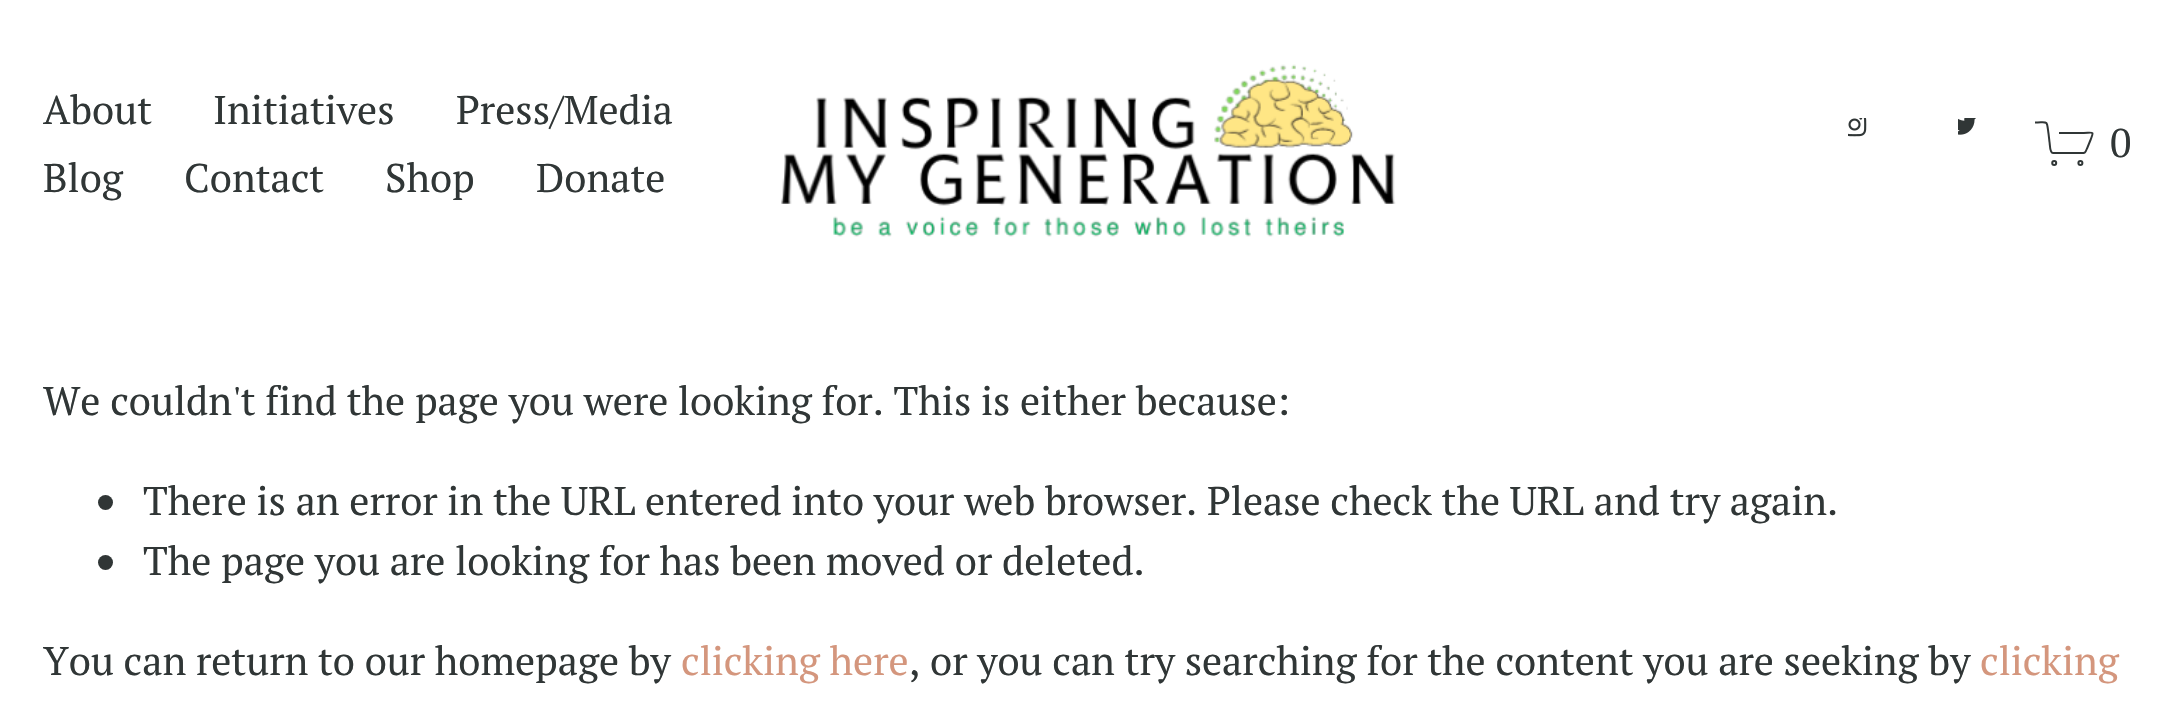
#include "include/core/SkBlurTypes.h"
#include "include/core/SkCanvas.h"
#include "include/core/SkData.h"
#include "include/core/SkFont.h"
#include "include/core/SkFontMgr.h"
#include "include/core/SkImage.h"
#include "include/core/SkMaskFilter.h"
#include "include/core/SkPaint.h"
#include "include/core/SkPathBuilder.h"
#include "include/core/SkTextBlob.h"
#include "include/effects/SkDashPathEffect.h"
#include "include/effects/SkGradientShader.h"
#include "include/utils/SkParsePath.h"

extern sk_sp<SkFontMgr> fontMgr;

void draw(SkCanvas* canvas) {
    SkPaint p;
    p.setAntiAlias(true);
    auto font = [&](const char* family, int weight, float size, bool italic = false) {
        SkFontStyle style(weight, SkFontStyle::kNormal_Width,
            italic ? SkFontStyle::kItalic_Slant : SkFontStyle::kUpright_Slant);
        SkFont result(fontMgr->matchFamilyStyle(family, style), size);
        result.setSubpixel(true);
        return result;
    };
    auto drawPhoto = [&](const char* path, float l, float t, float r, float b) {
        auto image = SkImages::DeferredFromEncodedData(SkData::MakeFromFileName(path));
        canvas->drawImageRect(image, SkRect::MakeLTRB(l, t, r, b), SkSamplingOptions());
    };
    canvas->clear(0xFFFFFFFF);
    auto font1 = font("PT Serif", 400, 40);
    p.setColor(0xFF303636);
    {
        const struct { const char* s; float x, y; } items[] = {
            {"About", 43, 124},
            {"Initiatives", 213, 124},
            {"Press/Media", 456, 124},
            {"Blog", 43, 192},
            {"Contact", 184, 192},
            {"Shop", 385, 192},
            {"Donate", 536, 192},
        };
        for (auto [s, x, y] : items) {
            canvas->drawString(s, x, y, font1, p);
        }
    }
    drawPhoto("media/1.png", 781, 64, 1396, 237);
    drawPhoto("media/2.png", 1848, 118, 1867, 137);
    drawPhoto("media/3.png", 1958, 118, 1976, 135);
    p.setStyle(SkPaint::kStroke_Style);
    p.setStrokeWidth(2);
    canvas->drawCircle(2080.4f, 162.9f, 2, p);
    canvas->drawCircle(2054.2f, 162.9f, 2, p);
    canvas->drawPath(SkPathBuilder().moveTo(2035, 122.5f).cubicTo(2048.5f, 122.5f, 2046.5f, 119.5f, 2048.5f, 133.5f).lineTo(2049.5f, 142).cubicTo(2050, 143.5f, 2049.5f, 153, 2053, 153).lineTo(2078, 153).cubicTo(2084.5f, 153, 2085, 154, 2087, 148.5f).lineTo(2090.5f, 140).cubicTo(2094.5f, 130, 2093.5f, 133, 2080.5f, 133).lineTo(2059, 133).detach(), p);
    p.setStyle(SkPaint::kFill_Style);
    canvas->drawString("0", 2110, 157, font1, p);
    canvas->drawString("We couldn't find the page you were looking for. This is either because:", 43, 415, font1, p);
    canvas->drawCircle(105.5f, 502.5f, 7.5f, p);
    canvas->drawString("There is an error in the URL entered into your web browser. Please check the URL and try again.", 143, 515, font1, p);
    canvas->drawCircle(105.5f, 562.5f, 7.5f, p);
    canvas->drawString("The page you are looking for has been moved or deleted.", 143, 575, font1, p);
    canvas->drawString("You can return to our homepage by", 43, 675, font1, p);
    p.setColor(0xFFD4967D);
    canvas->drawString("clicking here", 681, 675, font1, p);
    p.setColor(0xFF303636);
    canvas->drawString(", or you can try searching for the content you are seeking by", 909, 675, font1, p);
    p.setColor(0xFFD4967D);
    canvas->drawString("clicking", 1980, 675, font1, p);
}
